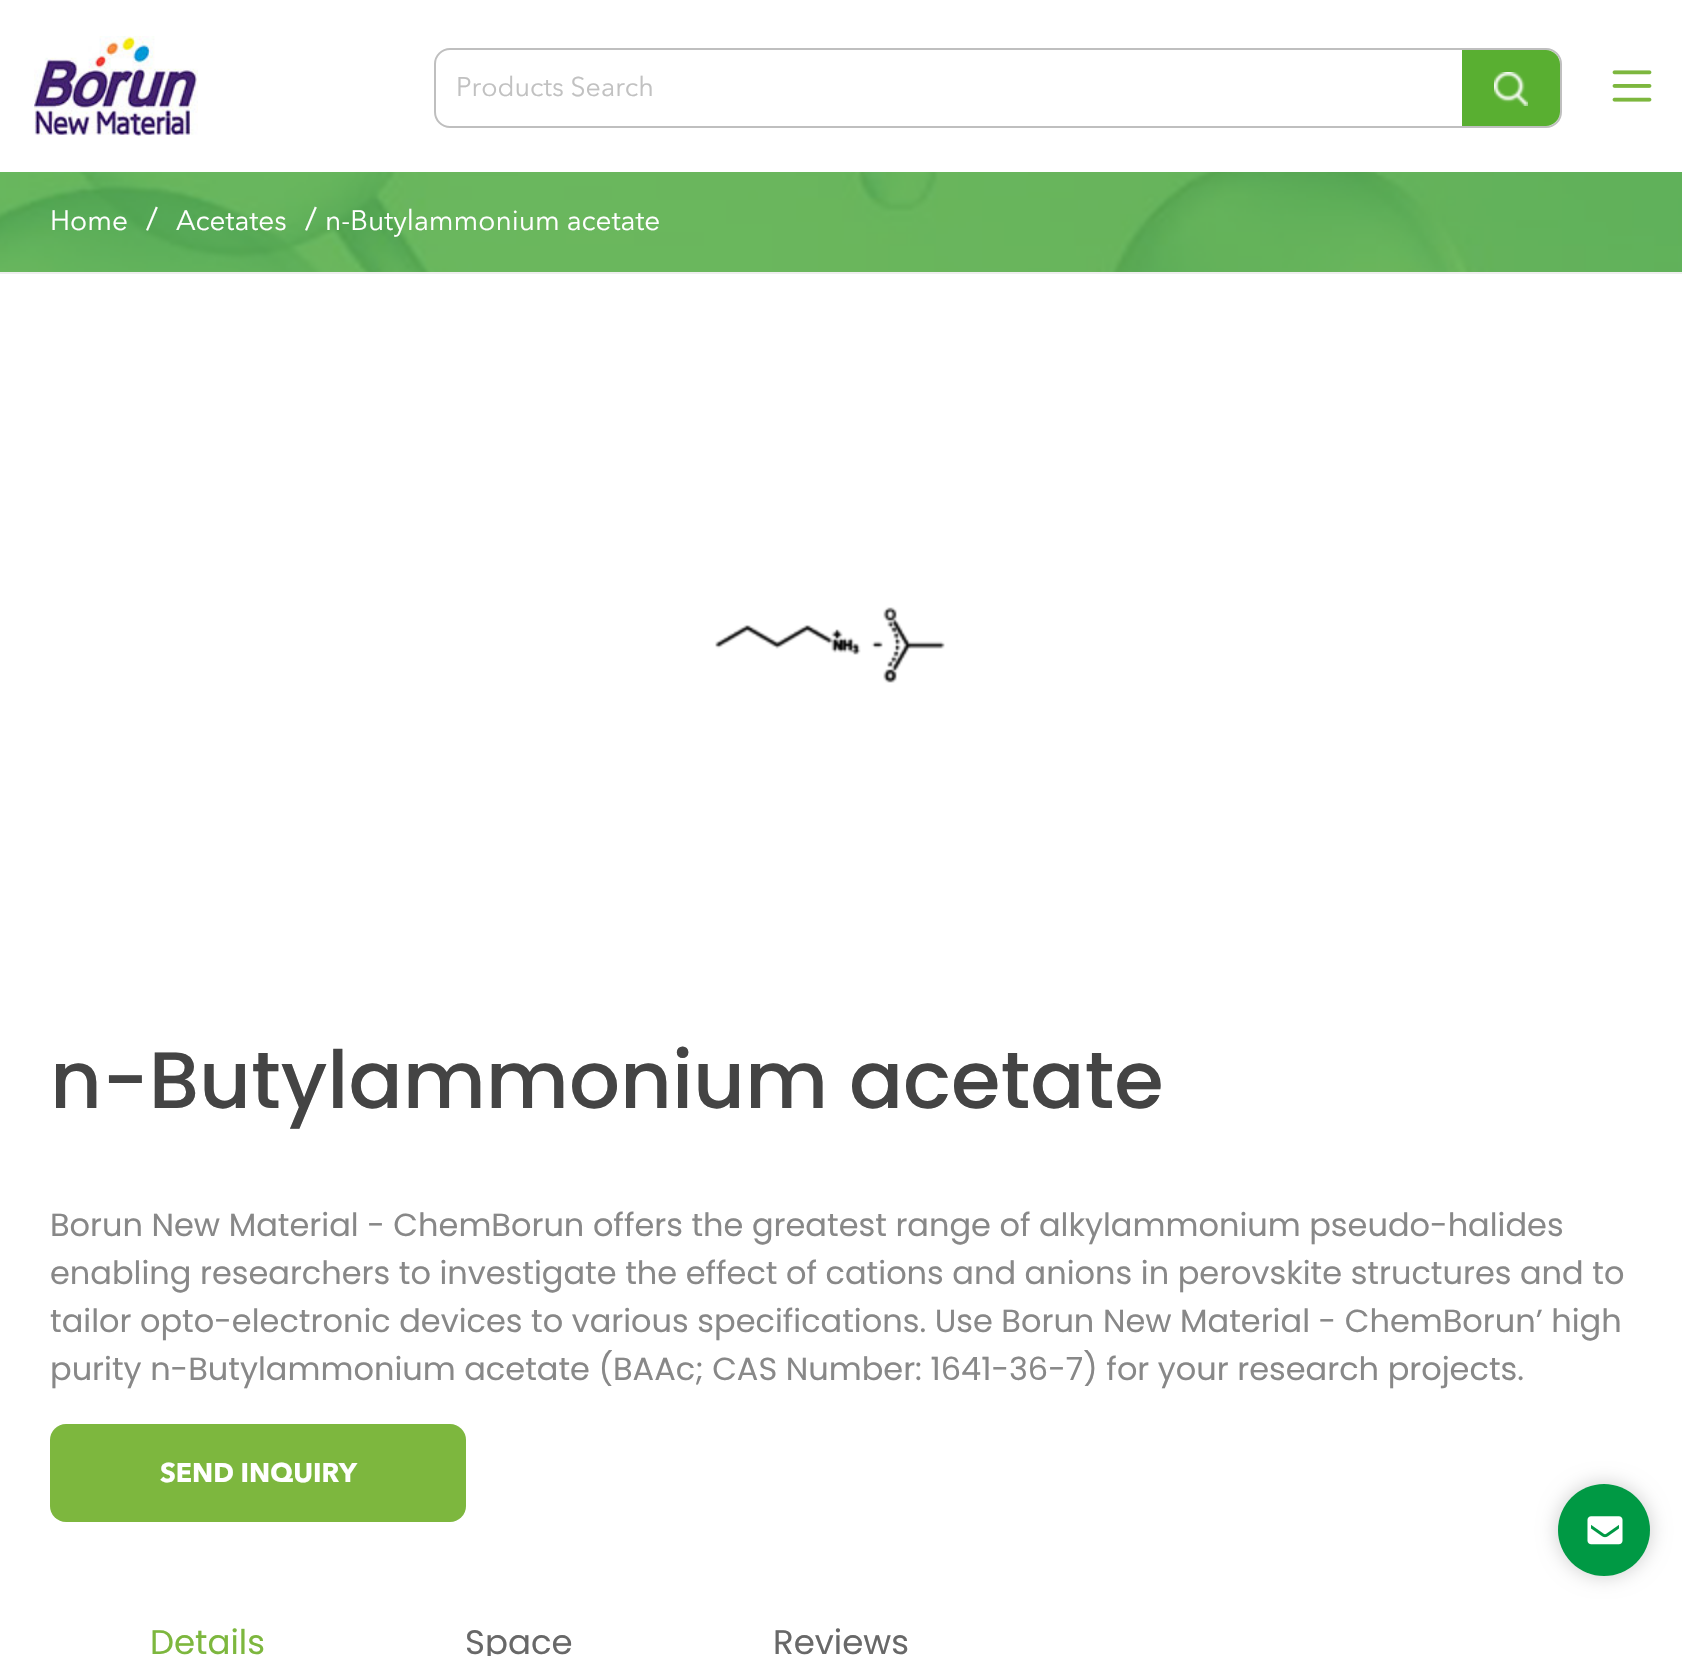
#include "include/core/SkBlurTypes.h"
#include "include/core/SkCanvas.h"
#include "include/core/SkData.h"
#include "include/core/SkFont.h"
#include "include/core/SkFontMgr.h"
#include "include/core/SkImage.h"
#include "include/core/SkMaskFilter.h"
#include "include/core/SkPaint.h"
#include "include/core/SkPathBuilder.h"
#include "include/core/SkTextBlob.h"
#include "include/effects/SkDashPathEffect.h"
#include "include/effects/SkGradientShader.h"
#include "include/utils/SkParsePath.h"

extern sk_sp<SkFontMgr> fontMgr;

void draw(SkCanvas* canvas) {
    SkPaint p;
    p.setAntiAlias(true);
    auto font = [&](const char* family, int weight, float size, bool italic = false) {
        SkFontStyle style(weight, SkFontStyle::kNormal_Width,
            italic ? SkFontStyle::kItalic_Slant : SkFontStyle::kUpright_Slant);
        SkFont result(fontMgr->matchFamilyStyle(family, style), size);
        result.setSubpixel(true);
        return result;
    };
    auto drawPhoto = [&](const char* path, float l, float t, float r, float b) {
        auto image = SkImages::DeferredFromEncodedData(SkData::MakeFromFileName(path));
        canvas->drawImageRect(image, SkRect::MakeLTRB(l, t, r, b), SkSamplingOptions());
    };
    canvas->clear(0xFFFFFFFF);
    drawPhoto("media/1.png", 34, 36, 198, 136);
    p.setStyle(SkPaint::kStroke_Style);
    p.setStrokeWidth(2);
    p.setColor(0xFFBFBFBF);
    canvas->drawRoundRect(SkRect::MakeLTRB(435, 49, 1561, 127), 15, 15, p);
    auto font1 = font("Avenir Next", 400, 26.75f);
    p.setStyle(SkPaint::kFill_Style);
    p.setColor(0xFFC1C1C1);
    canvas->drawString("Products Search", 456, 96, font1, p);
    p.setColor(0xFF59AF31);
    canvas->drawPath(SkPathBuilder().moveTo(1462, 50).lineTo(1546, 50).cubicTo(1553.5f, 50, 1560, 56.5f, 1560, 64).lineTo(1560, 112).cubicTo(1560, 119.5f, 1553.5f, 126, 1546, 126).lineTo(1462, 126).close().detach(), p);
    drawPhoto("media/2.png", 1494, 72, 1528, 106);
    drawPhoto("media/3.png", 1612, 70, 1652, 102);
    drawPhoto("media/4.png", 0, 172, 1682, 272);
    p.setColor(0xFFEEEEEE);
    canvas->drawRect(SkRect::MakeLTRB(0, 272, 1682, 274), p);
    auto font2 = font("Avenir Next", 400, 28);
    p.setColor(0xFFFFFFFF);
    canvas->drawString("Home", 50, 230, font2, p);
    auto font3 = font("Avenir Next", 400, 32);
    canvas->drawString("/", 146, 230, font3, p);
    canvas->drawString("Acetates", 176, 230, font2, p);
    canvas->drawString("/", 305, 230, font3, p);
    canvas->drawString("n-Butylammonium acetate", 325, 230, font2, p);
    drawPhoto("media/5.png", 715, 607, 945, 683);
    auto font4 = font("Poppins", 500, 80);
    p.setColor(0xFF444444);
    canvas->drawString("n-Butylammonium acetate", 50, 1108, font4, p);
    auto font5 = font("Poppins", 400, 32);
    p.setColor(0xFF888888);
    {
        const struct { const char* s; float x, y; } items[] = {
            {"Borun New Material - ChemBorun offers the greatest range of alkylammonium pseudo-halides", 50, 1236},
            {"enabling researchers to investigate the effect of cations and anions in perovskite structures and to", 50, 1284},
            {"tailor opto-electronic devices to various specifications. Use Borun New Material - ChemBorun’ high", 50, 1332},
            {"purity n-Butylammonium acetate (BAAc; CAS Number: 1641-36-7) for your research projects.", 50, 1380},
        };
        for (auto [s, x, y] : items) {
            canvas->drawString(s, x, y, font5, p);
        }
    }
    p.setColor(0xFF7DB73E);
    canvas->drawRoundRect(SkRect::MakeLTRB(50, 1424, 466, 1522), 16, 16, p);
    auto font6 = font("Avenir Next", 700, 26.75f);
    p.setColor(0xFFFFFFFF);
    canvas->drawString("SEND INQUIRY", 160, 1482, font6, p);
    auto font7 = font("Poppins", 400, 34);
    p.setColor(0xFF7DB73E);
    canvas->drawString("Details", 150, 1654, font7, p);
    p.setColor(0xFF686868);
    canvas->drawString("Space", 465, 1654, font7, p);
    canvas->drawString("Reviews", 773, 1654, font7, p);
    p.setColor(0x33000000);
    p.setMaskFilter(SkMaskFilter::MakeBlur(kNormal_SkBlurStyle, 10));
    canvas->drawRoundRect(SkRect::MakeLTRB(1558, 1484, 1650, 1576), 46, 46, p);
    p.setMaskFilter(nullptr);
    p.setColor(0xFF009944);
    canvas->drawCircle(1604, 1530, 46, p);
    drawPhoto("media/6.png", 1587, 1516, 1623, 1545);
}
